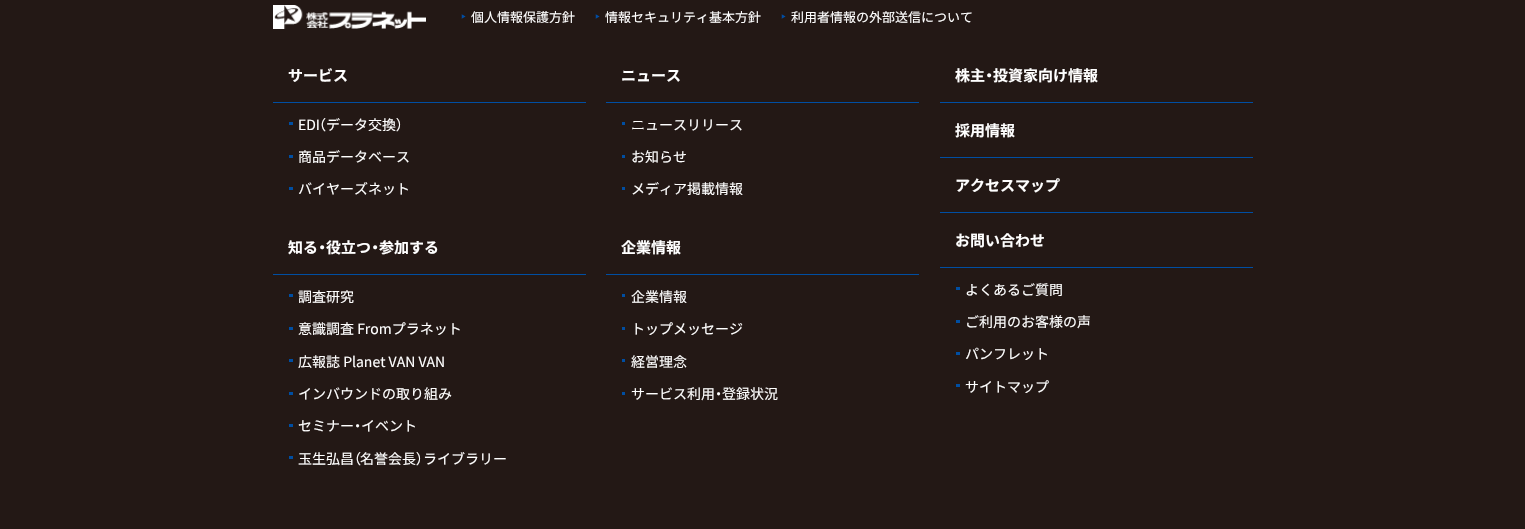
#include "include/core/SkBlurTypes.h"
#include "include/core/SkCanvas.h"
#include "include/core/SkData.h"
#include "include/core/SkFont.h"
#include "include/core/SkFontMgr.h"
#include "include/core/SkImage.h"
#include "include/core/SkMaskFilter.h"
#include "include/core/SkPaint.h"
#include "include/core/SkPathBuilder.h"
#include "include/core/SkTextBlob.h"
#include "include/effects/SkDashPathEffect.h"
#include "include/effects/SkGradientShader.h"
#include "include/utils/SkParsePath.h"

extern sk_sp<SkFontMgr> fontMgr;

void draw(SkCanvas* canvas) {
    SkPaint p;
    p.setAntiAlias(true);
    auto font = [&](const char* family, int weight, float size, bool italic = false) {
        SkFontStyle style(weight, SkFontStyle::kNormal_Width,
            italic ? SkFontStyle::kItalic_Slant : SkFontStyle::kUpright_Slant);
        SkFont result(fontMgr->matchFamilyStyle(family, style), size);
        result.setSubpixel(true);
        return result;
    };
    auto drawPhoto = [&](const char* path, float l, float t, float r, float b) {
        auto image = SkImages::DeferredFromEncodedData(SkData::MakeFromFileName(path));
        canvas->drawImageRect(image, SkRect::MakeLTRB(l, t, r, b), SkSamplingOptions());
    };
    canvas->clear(0xFF231815);
    drawPhoto("media/1.png", 273, 5, 426, 29);
    drawPhoto("media/2.png", 461, 14, 466, 19);
    auto font1 = font("Noto Sans JP", 400, 13);
    p.setColor(0xFFFFFFFF);
    canvas->drawString("個人情報保護方針", 471, 22, font1, p);
    drawPhoto("media/2.png", 595, 14, 600, 19);
    canvas->drawString("情報セキュリティ基本方針", 605, 22, font1, p);
    drawPhoto("media/2.png", 781, 14, 786, 19);
    canvas->drawString("利用者情報の外部送信について", 791, 22, font1, p);
    p.setColor(0xFF004EA2);
    canvas->drawRect(SkRect::MakeLTRB(273, 102, 586, 103), p);
    auto font2 = font("Noto Sans JP", 700, 15);
    p.setColor(0xFFFFFFFF);
    canvas->drawString("サービス", 288, 81, font2, p);
    p.setColor(0xFF004EA2);
    canvas->drawRect(SkRect::MakeLTRB(289, 122, 293, 125), p);
    auto font3 = font("Noto Sans JP", 400, 14);
    p.setColor(0xFFFFFFFF);
    canvas->drawString("EDI", 298, 130, font3, p);
    auto font4 = font("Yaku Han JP", 400, 14);
    canvas->drawString("（", 319, 130, font4, p);
    canvas->drawString("データ交換", 326, 130, font3, p);
    canvas->drawString("）", 396, 130, font4, p);
    p.setColor(0xFF004EA2);
    canvas->drawRect(SkRect::MakeLTRB(289, 155, 293, 158), p);
    p.setColor(0xFFFFFFFF);
    canvas->drawString("商品データベース", 298, 162, font3, p);
    p.setColor(0xFF004EA2);
    canvas->drawRect(SkRect::MakeLTRB(289, 187, 293, 190), p);
    p.setColor(0xFFFFFFFF);
    canvas->drawString("バイヤーズネット", 298, 194, font3, p);
    p.setColor(0xFF004EA2);
    canvas->drawRect(SkRect::MakeLTRB(273, 274, 586, 275), p);
    p.setColor(0xFFFFFFFF);
    canvas->drawString("知る", 288, 253, font2, p);
    auto font5 = font("Yaku Han JP", 700, 15);
    canvas->drawString("・", 318, 253, font5, p);
    canvas->drawString("役立つ", 326, 253, font2, p);
    canvas->drawString("・", 371, 253, font5, p);
    canvas->drawString("参加する", 379, 253, font2, p);
    p.setColor(0xFF004EA2);
    canvas->drawRect(SkRect::MakeLTRB(289, 294, 293, 297), p);
    p.setColor(0xFFFFFFFF);
    canvas->drawString("調査研究", 298, 302, font3, p);
    p.setColor(0xFF004EA2);
    canvas->drawRect(SkRect::MakeLTRB(289, 327, 293, 330), p);
    p.setColor(0xFFFFFFFF);
    canvas->drawString("意識調査 Fromプラネット", 298, 334, font3, p);
    p.setColor(0xFF004EA2);
    canvas->drawRect(SkRect::MakeLTRB(289, 359, 293, 362), p);
    p.setColor(0xFFFFFFFF);
    canvas->drawString("広報誌 Planet VAN VAN", 298, 367, font3, p);
    p.setColor(0xFF004EA2);
    canvas->drawRect(SkRect::MakeLTRB(289, 392, 293, 395), p);
    p.setColor(0xFFFFFFFF);
    canvas->drawString("インバウンドの取り組み", 298, 399, font3, p);
    p.setColor(0xFF004EA2);
    canvas->drawRect(SkRect::MakeLTRB(289, 424, 293, 427), p);
    p.setColor(0xFFFFFFFF);
    canvas->drawString("セミナー", 298, 431, font3, p);
    canvas->drawString("・", 354, 431, font4, p);
    canvas->drawString("イベント", 361, 431, font3, p);
    p.setColor(0xFF004EA2);
    canvas->drawRect(SkRect::MakeLTRB(289, 456, 293, 459), p);
    p.setColor(0xFFFFFFFF);
    canvas->drawString("玉生弘昌", 298, 464, font3, p);
    canvas->drawString("（", 354, 464, font4, p);
    canvas->drawString("名誉会長", 360, 464, font3, p);
    canvas->drawString("）", 416, 464, font4, p);
    canvas->drawString("ライブラリー", 423, 464, font3, p);
    p.setColor(0xFF004EA2);
    canvas->drawRect(SkRect::MakeLTRB(606, 102, 919, 103), p);
    p.setColor(0xFFFFFFFF);
    canvas->drawString("ニュース", 621, 81, font2, p);
    p.setColor(0xFF004EA2);
    canvas->drawRect(SkRect::MakeLTRB(622, 122, 625, 125), p);
    p.setColor(0xFFFFFFFF);
    canvas->drawString("ニュースリリース", 631, 130, font3, p);
    p.setColor(0xFF004EA2);
    canvas->drawRect(SkRect::MakeLTRB(622, 155, 625, 158), p);
    p.setColor(0xFFFFFFFF);
    canvas->drawString("お知らせ", 631, 162, font3, p);
    p.setColor(0xFF004EA2);
    canvas->drawRect(SkRect::MakeLTRB(622, 187, 625, 190), p);
    p.setColor(0xFFFFFFFF);
    canvas->drawString("メディア掲載情報", 631, 194, font3, p);
    p.setColor(0xFF004EA2);
    canvas->drawRect(SkRect::MakeLTRB(606, 274, 919, 275), p);
    p.setColor(0xFFFFFFFF);
    canvas->drawString("企業情報", 621, 253, font2, p);
    p.setColor(0xFF004EA2);
    canvas->drawRect(SkRect::MakeLTRB(622, 294, 625, 297), p);
    p.setColor(0xFFFFFFFF);
    canvas->drawString("企業情報", 631, 302, font3, p);
    p.setColor(0xFF004EA2);
    canvas->drawRect(SkRect::MakeLTRB(622, 327, 625, 330), p);
    p.setColor(0xFFFFFFFF);
    canvas->drawString("トップメッセージ", 631, 334, font3, p);
    p.setColor(0xFF004EA2);
    canvas->drawRect(SkRect::MakeLTRB(622, 359, 625, 362), p);
    p.setColor(0xFFFFFFFF);
    canvas->drawString("経営理念", 631, 367, font3, p);
    p.setColor(0xFF004EA2);
    canvas->drawRect(SkRect::MakeLTRB(622, 392, 625, 395), p);
    p.setColor(0xFFFFFFFF);
    canvas->drawString("サービス利用", 631, 399, font3, p);
    canvas->drawString("・", 715, 399, font4, p);
    canvas->drawString("登録状況", 722, 399, font3, p);
    p.setColor(0xFF004EA2);
    canvas->drawRect(SkRect::MakeLTRB(940, 102, 1253, 103), p);
    p.setColor(0xFFFFFFFF);
    canvas->drawString("株主", 955, 81, font2, p);
    canvas->drawString("・", 985, 81, font5, p);
    canvas->drawString("投資家向け情報", 993, 81, font2, p);
    p.setColor(0xFF004EA2);
    canvas->drawRect(SkRect::MakeLTRB(940, 157, 1253, 158), p);
    p.setColor(0xFFFFFFFF);
    canvas->drawString("採用情報", 955, 136, font2, p);
    p.setColor(0xFF004EA2);
    canvas->drawRect(SkRect::MakeLTRB(940, 212, 1253, 213), p);
    p.setColor(0xFFFFFFFF);
    canvas->drawString("アクセスマップ", 955, 191, font2, p);
    p.setColor(0xFF004EA2);
    canvas->drawRect(SkRect::MakeLTRB(940, 267, 1253, 268), p);
    p.setColor(0xFFFFFFFF);
    canvas->drawString("お問い合わせ", 955, 246, font2, p);
    p.setColor(0xFF004EA2);
    canvas->drawRect(SkRect::MakeLTRB(956, 287, 960, 290), p);
    p.setColor(0xFFFFFFFF);
    canvas->drawString("よくあるご質問", 965, 295, font3, p);
    p.setColor(0xFF004EA2);
    canvas->drawRect(SkRect::MakeLTRB(956, 320, 960, 323), p);
    p.setColor(0xFFFFFFFF);
    canvas->drawString("ご利用のお客様の声", 965, 327, font3, p);
    p.setColor(0xFF004EA2);
    canvas->drawRect(SkRect::MakeLTRB(956, 352, 960, 355), p);
    p.setColor(0xFFFFFFFF);
    canvas->drawString("パンフレット", 965, 359, font3, p);
    p.setColor(0xFF004EA2);
    canvas->drawRect(SkRect::MakeLTRB(956, 384, 960, 387), p);
    p.setColor(0xFFFFFFFF);
    canvas->drawString("サイトマップ", 965, 392, font3, p);
}
